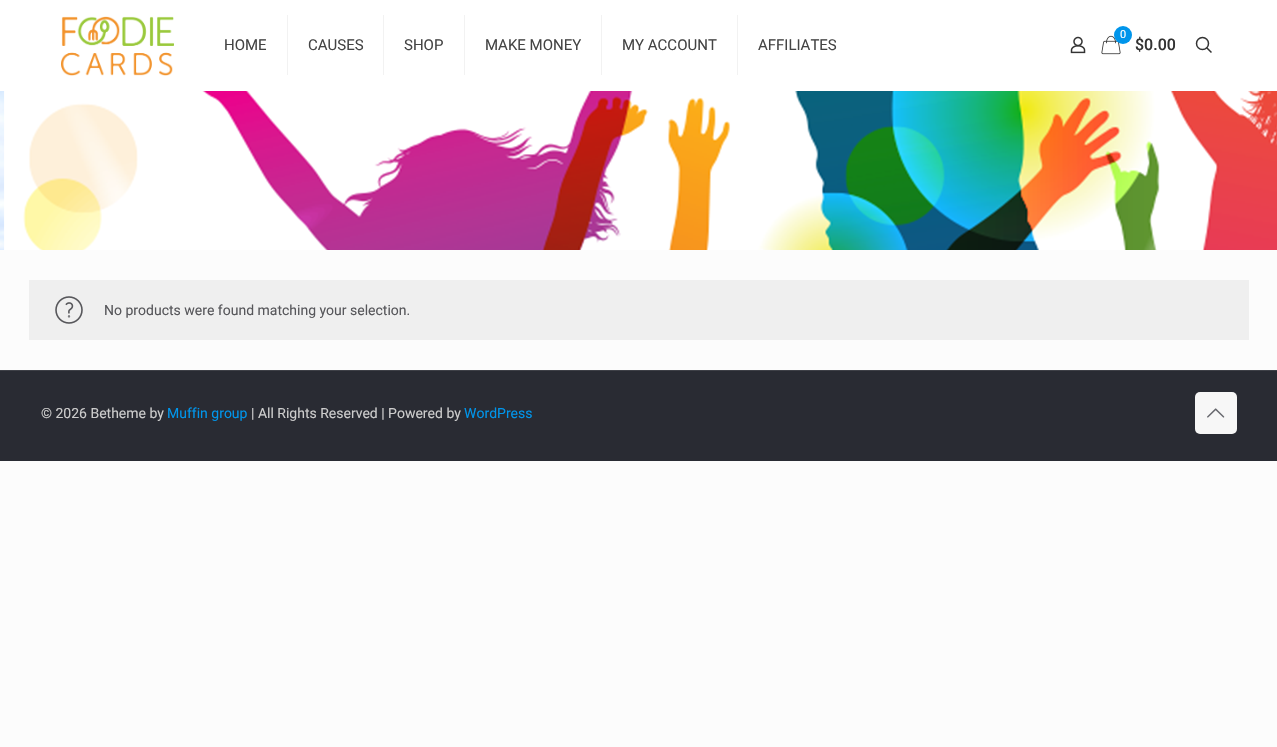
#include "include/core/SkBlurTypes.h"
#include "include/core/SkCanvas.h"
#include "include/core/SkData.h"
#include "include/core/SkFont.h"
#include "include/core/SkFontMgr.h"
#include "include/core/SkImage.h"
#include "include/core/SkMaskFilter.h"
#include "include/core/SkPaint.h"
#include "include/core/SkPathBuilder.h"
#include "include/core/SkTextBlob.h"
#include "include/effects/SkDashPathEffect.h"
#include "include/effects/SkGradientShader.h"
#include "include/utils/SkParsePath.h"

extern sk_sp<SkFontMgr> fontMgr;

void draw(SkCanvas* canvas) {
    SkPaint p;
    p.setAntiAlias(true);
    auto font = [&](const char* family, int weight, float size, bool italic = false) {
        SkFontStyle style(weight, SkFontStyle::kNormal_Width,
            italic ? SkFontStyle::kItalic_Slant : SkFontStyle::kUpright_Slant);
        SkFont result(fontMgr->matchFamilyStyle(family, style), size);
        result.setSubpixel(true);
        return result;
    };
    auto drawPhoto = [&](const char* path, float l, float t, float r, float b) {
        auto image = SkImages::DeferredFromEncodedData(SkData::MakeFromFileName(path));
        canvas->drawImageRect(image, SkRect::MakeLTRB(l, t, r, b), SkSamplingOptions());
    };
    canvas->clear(0xFFFCFCFC);
    drawPhoto("media/1.png", 0, 91, 1277, 250);
    p.setColor(0xFFFFFFFF);
    canvas->drawRect(SkRect::MakeLTRB(0, 0, 1277, 91), p);
    drawPhoto("media/2.png", 61, 16, 174, 76);
    p.setColor(0xFFF2F2F2);
    canvas->drawRect(SkRect::MakeLTRB(287, 15, 288, 75), p);
    auto font1 = font("Roboto", 400, 15);
    p.setColor(0xFF444444);
    canvas->drawString("HOME", 224, 50, font1, p);
    p.setColor(0xFFF2F2F2);
    canvas->drawRect(SkRect::MakeLTRB(383, 15, 384, 75), p);
    p.setColor(0xFF444444);
    canvas->drawString("CAUSES", 308, 50, font1, p);
    p.setColor(0xFFF2F2F2);
    canvas->drawRect(SkRect::MakeLTRB(464, 15, 465, 75), p);
    p.setColor(0xFF444444);
    canvas->drawString("SHOP", 404, 50, font1, p);
    p.setColor(0xFFF2F2F2);
    canvas->drawRect(SkRect::MakeLTRB(601, 15, 602, 75), p);
    p.setColor(0xFF444444);
    canvas->drawString("MAKE MONEY", 485, 50, font1, p);
    p.setColor(0xFFF2F2F2);
    canvas->drawRect(SkRect::MakeLTRB(737, 15, 738, 75), p);
    p.setColor(0xFF444444);
    canvas->drawString("MY ACCOUNT", 622, 50, font1, p);
    canvas->drawString("AFFILIATES", 758, 50, font1, p);
    drawPhoto("media/3.png", 1070, 36, 1086, 54);
    drawPhoto("media/4.png", 1101, 35, 1121, 55);
    p.setColor(0xFF0095EB);
    canvas->drawCircle(1123, 35, 9, p);
    auto font2 = font("Roboto", 400, 11);
    p.setColor(0xFFFFFFFF);
    canvas->drawString("0", 1120, 38, font2, p);
    auto font3 = font("Roboto", 500, 16);
    p.setColor(0xFF333333);
    canvas->drawString("$0.00", 1135, 50, font3, p);
    p.setStyle(SkPaint::kStroke_Style);
    p.setStrokeWidth(1.5f);
    canvas->drawCircle(1202.5f, 43.5f, 6, p);
    canvas->drawPath(SkPathBuilder().moveTo(1206.5f, 47.5f).lineTo(1211.5f, 52.5f).detach(), p);
    p.setStyle(SkPaint::kFill_Style);
    p.setColor(0xFFEFEFEF);
    canvas->drawRect(SkRect::MakeLTRB(29, 280, 1249, 340), p);
    drawPhoto("media/5.png", 55, 296, 83, 324);
    auto font4 = font("Roboto", 400, 14);
    p.setColor(0xFF57575B);
    canvas->drawString("No products were found matching your selection.", 104, 315, font4, p);
    p.setColor(0xFF292B33);
    canvas->drawRect(SkRect::MakeLTRB(0, 371, 1277, 461), p);
    p.setColor(0xFF3E4047);
    canvas->drawRect(SkRect::MakeLTRB(0, 370, 1277, 371), p);
    p.setColor(0xFFCCCCCC);
    canvas->drawString("© 2026 Betheme by", 41, 418, font4, p);
    p.setColor(0xFF0095EB);
    canvas->drawString("Muffin group", 167, 418, font4, p);
    p.setColor(0xFFCCCCCC);
    canvas->drawString("| All Rights Reserved | Powered by", 251, 418, font4, p);
    p.setColor(0xFF0095EB);
    canvas->drawString("WordPress", 464, 418, font4, p);
    p.setColor(0xFFF7F7F7);
    canvas->drawRoundRect(SkRect::MakeLTRB(1195, 392, 1237, 434), 5, 5, p);
    drawPhoto("media/6.png", 1207, 408, 1225, 418);
}
